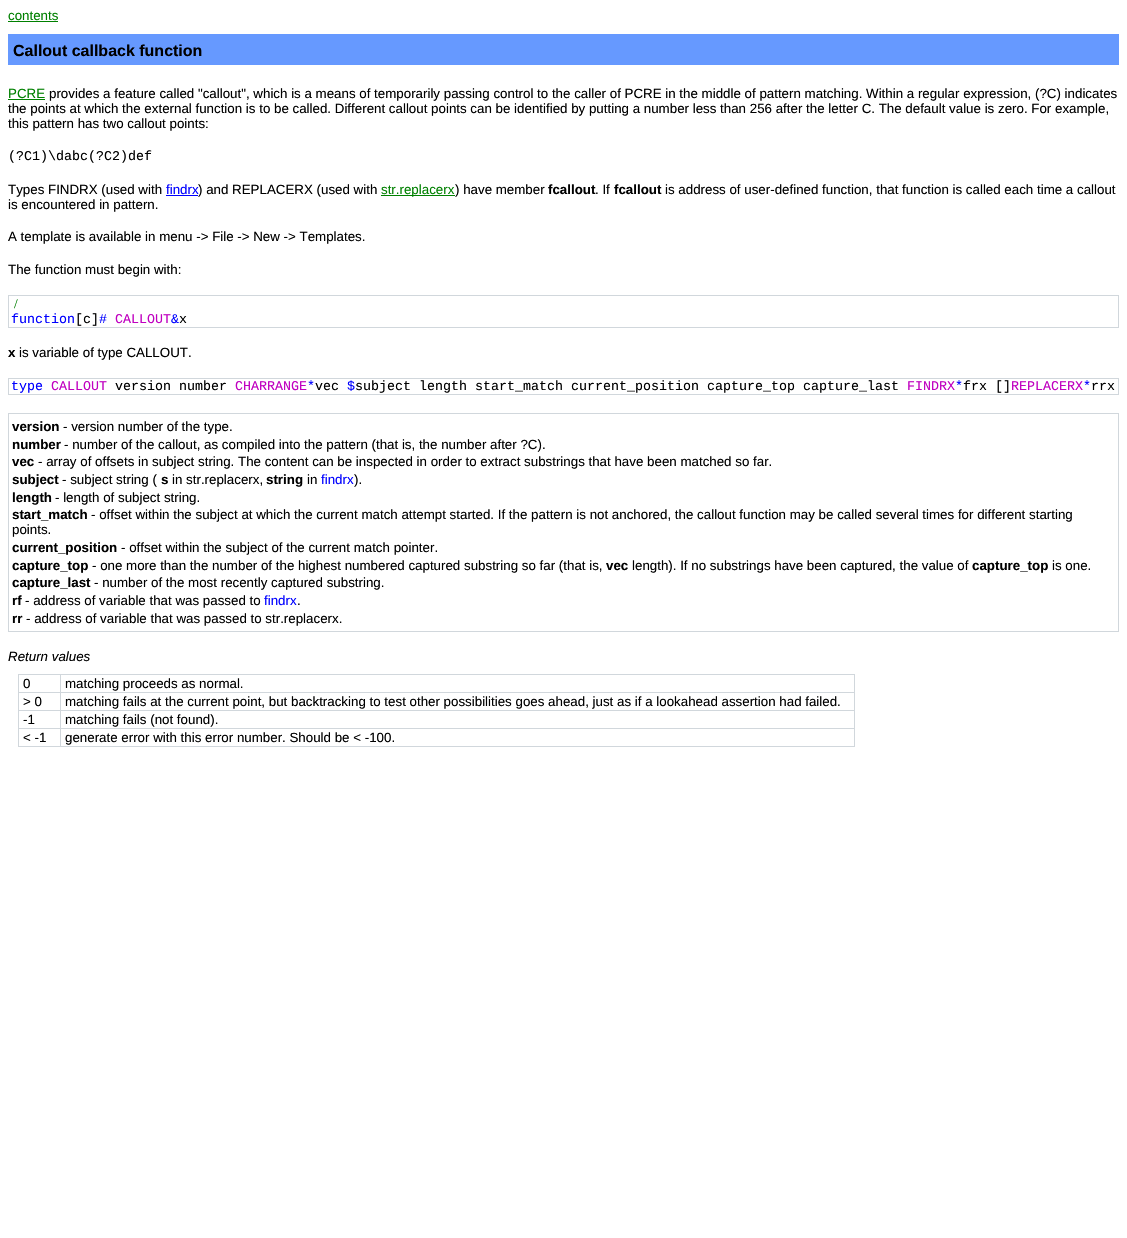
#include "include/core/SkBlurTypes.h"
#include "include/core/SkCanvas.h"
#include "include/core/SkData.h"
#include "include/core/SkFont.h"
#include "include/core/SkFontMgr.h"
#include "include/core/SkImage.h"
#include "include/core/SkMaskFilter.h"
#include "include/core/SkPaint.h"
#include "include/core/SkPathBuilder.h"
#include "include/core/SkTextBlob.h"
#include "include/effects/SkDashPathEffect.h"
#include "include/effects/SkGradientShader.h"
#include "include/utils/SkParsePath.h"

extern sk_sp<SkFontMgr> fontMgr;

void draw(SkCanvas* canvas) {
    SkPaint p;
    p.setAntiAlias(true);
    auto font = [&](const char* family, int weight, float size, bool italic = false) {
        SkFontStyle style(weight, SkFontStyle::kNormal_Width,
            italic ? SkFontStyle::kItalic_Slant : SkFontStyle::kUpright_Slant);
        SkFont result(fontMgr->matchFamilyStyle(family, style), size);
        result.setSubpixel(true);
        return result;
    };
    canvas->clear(0xFFFFFFFF);
    auto font1 = font("Liberation Sans", 400, 13.33f);
    p.setColor(0xFF008000);
    canvas->drawString("contents", 8, 20, font1, p);
    canvas->drawRect(SkRect::MakeLTRB(8, 21, 58, 22), p);
    p.setColor(0xFF6699FF);
    canvas->drawRect(SkRect::MakeLTRB(8, 34, 1119, 65), p);
    auto font2 = font("Liberation Sans", 700, 16);
    p.setColor(0xFF000000);
    canvas->drawString("Callout callback function", 13, 56, font2, p);
    p.setColor(0xFF008000);
    canvas->drawString("PCRE", 8, 98, font1, p);
    canvas->drawRect(SkRect::MakeLTRB(8, 99, 45, 100), p);
    p.setColor(0xFF000000);
    {
        const struct { const char* s; float x, y; } items[] = {
            {"provides a feature called \"callout\", which is a means of temporarily passing control to the caller of PCRE in the middle of pattern matching. Within a regular expression, (?C) indicates", 49, 98},
            {"the points at which the external function is to be called. Different callout points can be identified by putting a number less than 256 after the letter C. The default value is zero. For example,", 8, 113},
            {"this pattern has two callout points:", 8, 128},
        };
        for (auto [s, x, y] : items) {
            canvas->drawString(s, x, y, font1, p);
        }
    }
    auto font3 = font("Liberation Mono", 400, 13.33f);
    canvas->drawString("(?C1)\\dabc(?C2)def", 8, 160, font3, p);
    canvas->drawString("Types FINDRX (used with", 8, 194, font1, p);
    p.setColor(0xFF0000FF);
    canvas->drawString("findrx", 166, 194, font1, p);
    canvas->drawRect(SkRect::MakeLTRB(166, 195, 198, 196), p);
    p.setColor(0xFF000000);
    canvas->drawString(") and REPLACERX (used with", 198, 194, font1, p);
    p.setColor(0xFF008000);
    canvas->drawRect(SkRect::MakeLTRB(381, 195, 455, 196), p);
    canvas->drawString("str.replacerx", 381, 194, font1, p);
    p.setColor(0xFF000000);
    canvas->drawString(") have member", 455, 194, font1, p);
    auto font4 = font("Liberation Sans", 700, 13.33f);
    canvas->drawString("fcallout", 548, 194, font4, p);
    canvas->drawString(". If", 595, 194, font1, p);
    canvas->drawString("fcallout", 614, 194, font4, p);
    {
        const struct { const char* s; float x, y; } items[] = {
            {"is address of user-defined function, that function is called each time a callout", 665, 194},
            {"is encountered in pattern.", 8, 209},
            {"A template is available in menu -> File -> New -> Templates.", 8, 241},
            {"The function must begin with:", 8, 274},
        };
        for (auto [s, x, y] : items) {
            canvas->drawString(s, x, y, font1, p);
        }
    }
    p.setStyle(SkPaint::kStroke_Style);
    p.setStrokeWidth(1);
    p.setColor(0xFFD1D7DC);
    canvas->drawRect(SkRect::MakeLTRB(8.5f, 295.5f, 1118.5f, 327.5f), p);
    auto font5 = font("Liberation Serif", 400, 13.33f);
    p.setStyle(SkPaint::kFill_Style);
    p.setColor(0xFF008000);
    canvas->drawString("/", 14, 308, font5, p);
    p.setColor(0xFF0000FF);
    canvas->drawString("function", 11, 323, font3, p);
    p.setColor(0xFF000000);
    canvas->drawString("[c]", 75, 323, font3, p);
    p.setColor(0xFF0000FF);
    canvas->drawString("#", 99, 323, font3, p);
    p.setColor(0xFFC000C0);
    canvas->drawString("CALLOUT", 115, 323, font3, p);
    p.setColor(0xFF0000FF);
    canvas->drawString("&", 171, 323, font3, p);
    p.setColor(0xFF000000);
    canvas->drawString("x", 179, 323, font3, p);
    canvas->drawString("x", 8, 357, font4, p);
    canvas->drawString("is variable of type CALLOUT.", 19, 357, font1, p);
    p.setStyle(SkPaint::kStroke_Style);
    p.setColor(0xFFD1D7DC);
    canvas->drawRect(SkRect::MakeLTRB(8.5f, 378.5f, 1118.5f, 394.5f), p);
    p.setStyle(SkPaint::kFill_Style);
    p.setColor(0xFF0000FF);
    canvas->drawString("type", 11, 390, font3, p);
    p.setColor(0xFFC000C0);
    canvas->drawString("CALLOUT", 51, 390, font3, p);
    p.setColor(0xFF000000);
    canvas->drawString("version number", 115, 390, font3, p);
    p.setColor(0xFFC000C0);
    canvas->drawString("CHARRANGE", 235, 390, font3, p);
    p.setColor(0xFF0000FF);
    canvas->drawString("*", 307, 390, font3, p);
    p.setColor(0xFF000000);
    canvas->drawString("vec", 315, 390, font3, p);
    p.setColor(0xFF0000FF);
    canvas->drawString("$", 347, 390, font3, p);
    p.setColor(0xFF000000);
    canvas->drawString("subject length start_match current_position capture_top capture_last", 355, 390, font3, p);
    p.setColor(0xFFC000C0);
    canvas->drawString("FINDRX", 907, 390, font3, p);
    p.setColor(0xFF0000FF);
    canvas->drawString("*", 955, 390, font3, p);
    p.setColor(0xFF000000);
    canvas->drawString("frx []", 963, 390, font3, p);
    p.setColor(0xFFC000C0);
    canvas->drawString("REPLACERX", 1011, 390, font3, p);
    p.setColor(0xFF0000FF);
    canvas->drawString("*", 1083, 390, font3, p);
    p.setColor(0xFF000000);
    canvas->drawString("rrx", 1091, 390, font3, p);
    p.setStyle(SkPaint::kStroke_Style);
    p.setColor(0xFFD1D7DC);
    canvas->drawRect(SkRect::MakeLTRB(8.5f, 413.5f, 1118.5f, 631.5f), p);
    p.setStyle(SkPaint::kFill_Style);
    p.setColor(0xFF000000);
    canvas->drawString("version", 12, 431, font4, p);
    canvas->drawString("- version number of the type.", 63, 431, font1, p);
    canvas->drawString("number", 12, 449, font4, p);
    canvas->drawString("- number of the callout, as compiled into the pattern (that is, the number after ?C).", 64, 449, font1, p);
    canvas->drawString("vec", 12, 466, font4, p);
    canvas->drawString("- array of offsets in subject string. The content can be inspected in order to extract substrings that have been matched so far.", 38, 466, font1, p);
    canvas->drawString("subject", 12, 484, font4, p);
    canvas->drawString("- subject string (", 62, 484, font1, p);
    canvas->drawString("s", 161, 484, font4, p);
    canvas->drawString("in str.replacerx,", 172, 484, font1, p);
    canvas->drawString("string", 266, 484, font4, p);
    canvas->drawString("in", 307, 484, font1, p);
    p.setColor(0xFF0000FF);
    canvas->drawString("findrx", 321, 484, font1, p);
    p.setColor(0xFF000000);
    canvas->drawString(").", 354, 484, font1, p);
    canvas->drawString("length", 12, 502, font4, p);
    canvas->drawString("- length of subject string.", 55, 502, font1, p);
    canvas->drawString("start_match", 12, 519, font4, p);
    canvas->drawString("- offset within the subject at which the current match attempt started. If the pattern is not anchored, the callout function may be called several times for different starting", 91, 519, font1, p);
    canvas->drawString("points.", 12, 534, font1, p);
    canvas->drawString("current_position", 12, 552, font4, p);
    canvas->drawString("- offset within the subject of the current match pointer.", 121, 552, font1, p);
    canvas->drawString("capture_top", 12, 570, font4, p);
    canvas->drawString("- one more than the number of the highest numbered captured substring so far (that is,", 92, 570, font1, p);
    canvas->drawString("vec", 606, 570, font4, p);
    canvas->drawString("length). If no substrings have been captured, the value of", 632, 570, font1, p);
    canvas->drawString("capture_top", 972, 570, font4, p);
    canvas->drawString("is one.", 1052, 570, font1, p);
    canvas->drawString("capture_last", 12, 587, font4, p);
    canvas->drawString("- number of the most recently captured substring.", 94, 587, font1, p);
    canvas->drawString("rf", 12, 605, font4, p);
    canvas->drawString("- address of variable that was passed to", 25, 605, font1, p);
    p.setColor(0xFF0000FF);
    canvas->drawString("findrx", 264, 605, font1, p);
    p.setColor(0xFF000000);
    canvas->drawString(".", 297, 605, font1, p);
    canvas->drawString("rr", 12, 623, font4, p);
    canvas->drawString("- address of variable that was passed to str.replacerx.", 26, 623, font1, p);
    auto font6 = font("Liberation Sans", 400, 13.33f, true);
    canvas->drawString("Return values", 8, 661, font6, p);
    {
        const struct { float l, t, r, b; SkColor color; } items[] = {
            {18, 674, 855, 675, 0xFFD1D7DC},
            {854, 674, 855, 747, 0xFFD1D7DC},
            {18, 746, 855, 747, 0xFFD1D7DC},
            {18, 674, 19, 747, 0xFFD1D7DC},
        };
        for (auto [l, t, r, b, color] : items) {
            p.setColor(color);
            canvas->drawRect(SkRect::MakeLTRB(l, t, r, b), p);
        }
    }
    p.setColor(0xFF000000);
    canvas->drawString("0", 23, 688, font1, p);
    {
        const struct { float l, t, r, b; SkColor color; } items[] = {
            {60, 692, 855, 693, 0xFFD1D7DC},
            {60, 710, 855, 711, 0xFFD1D7DC},
            {60, 728, 855, 729, 0xFFD1D7DC},
            {60, 728, 61, 747, 0xFFD1D7DC},
            {18, 728, 61, 729, 0xFFD1D7DC},
            {60, 710, 61, 729, 0xFFD1D7DC},
            {18, 710, 61, 711, 0xFFD1D7DC},
            {60, 692, 61, 711, 0xFFD1D7DC},
            {18, 692, 61, 693, 0xFFD1D7DC},
            {60, 674, 61, 693, 0xFFD1D7DC},
        };
        for (auto [l, t, r, b, color] : items) {
            p.setColor(color);
            canvas->drawRect(SkRect::MakeLTRB(l, t, r, b), p);
        }
    }
    p.setColor(0xFF000000);
    {
        const struct { const char* s; float x, y; } items[] = {
            {"matching proceeds as normal.", 65, 688},
            {"> 0", 23, 706},
            {"matching fails at the current point, but backtracking to test other possibilities goes ahead, just as if a lookahead assertion had failed.", 65, 706},
            {"-1", 23, 724},
            {"matching fails (not found).", 65, 724},
            {"< -1", 23, 742},
            {"generate error with this error number. Should be < -100.", 65, 742},
        };
        for (auto [s, x, y] : items) {
            canvas->drawString(s, x, y, font1, p);
        }
    }
}
